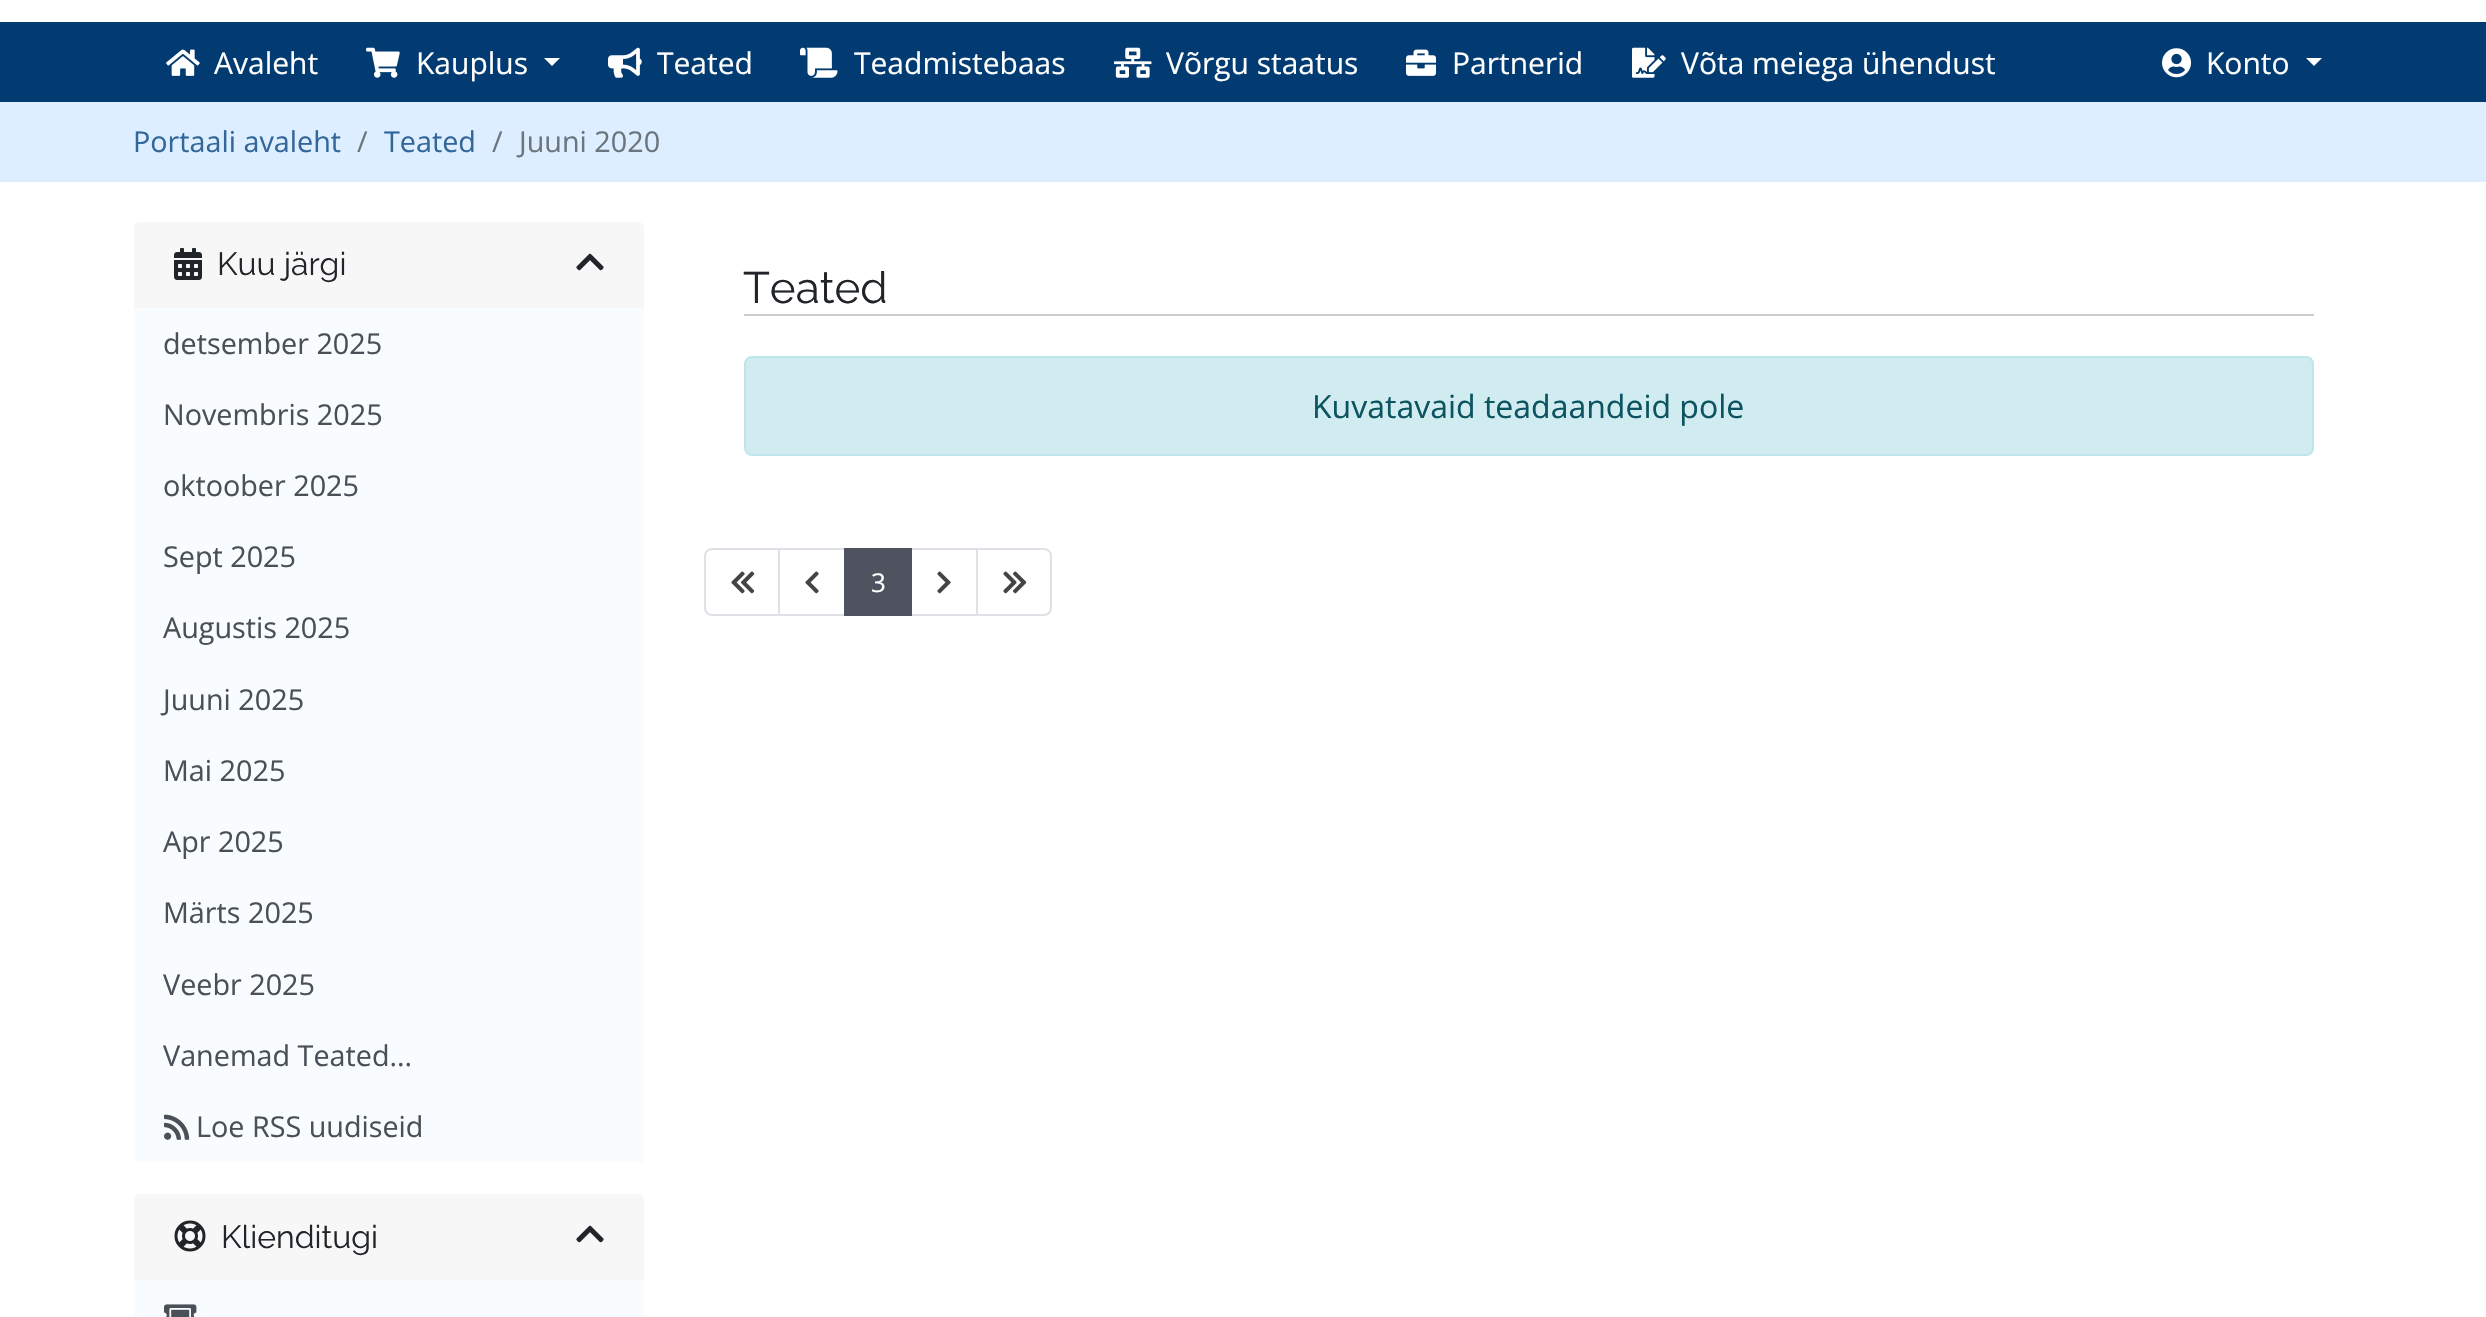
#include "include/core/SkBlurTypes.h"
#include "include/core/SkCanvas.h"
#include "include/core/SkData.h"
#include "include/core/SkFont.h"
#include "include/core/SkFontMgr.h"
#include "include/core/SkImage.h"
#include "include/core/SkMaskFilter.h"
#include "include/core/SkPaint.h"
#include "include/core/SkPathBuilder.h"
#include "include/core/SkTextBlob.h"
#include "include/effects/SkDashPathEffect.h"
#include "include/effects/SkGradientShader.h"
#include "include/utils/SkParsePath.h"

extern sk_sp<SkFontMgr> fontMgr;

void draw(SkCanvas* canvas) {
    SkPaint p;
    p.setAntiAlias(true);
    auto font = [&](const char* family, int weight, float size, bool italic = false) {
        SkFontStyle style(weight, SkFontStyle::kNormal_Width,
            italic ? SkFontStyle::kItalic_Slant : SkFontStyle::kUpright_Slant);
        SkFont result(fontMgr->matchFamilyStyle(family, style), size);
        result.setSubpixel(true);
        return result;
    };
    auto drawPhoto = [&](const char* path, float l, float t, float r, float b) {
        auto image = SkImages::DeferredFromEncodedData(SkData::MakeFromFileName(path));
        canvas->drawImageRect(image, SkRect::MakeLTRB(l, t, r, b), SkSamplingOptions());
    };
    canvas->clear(0xFFFFFFFF);
    p.setColor(0xFF023B72);
    canvas->drawRect(SkRect::MakeLTRB(0, 22, 2486, 102), p);
    drawPhoto("media/1.png", 166, 49, 200, 76);
    auto font1 = font("Open Sans", 400, 30);
    p.setColor(0xFFFFFFFF);
    canvas->drawString("Avaleht", 214, 74, font1, p);
    drawPhoto("media/2.png", 366, 47, 400, 78);
    canvas->drawString("Kauplus", 416, 74, font1, p);
    canvas->drawPath(SkPathBuilder().moveTo(544, 58).lineTo(560, 58).lineTo(552, 66).close().detach(), p);
    drawPhoto("media/3.png", 608, 47, 642, 78);
    canvas->drawString("Teated", 657, 74, font1, p);
    drawPhoto("media/4.png", 800, 47, 838, 78);
    canvas->drawString("Teadmistebaas", 854, 74, font1, p);
    drawPhoto("media/5.png", 1114, 47, 1152, 78);
    canvas->drawString("Võrgu staatus", 1166, 74, font1, p);
    drawPhoto("media/6.png", 1406, 49, 1436, 76);
    canvas->drawString("Partnerid", 1452, 74, font1, p);
    drawPhoto("media/7.png", 1632, 47, 1666, 78);
    canvas->drawString("Võta meiega ühendust", 1681, 74, font1, p);
    drawPhoto("media/8.png", 2162, 48, 2192, 78);
    canvas->drawString("Konto", 2206, 74, font1, p);
    canvas->drawPath(SkPathBuilder().moveTo(2306, 58).lineTo(2322, 58).lineTo(2314, 66).close().detach(), p);
    p.setColor(0xFFDCEEFF);
    canvas->drawRect(SkRect::MakeLTRB(0, 102, 2486, 182), p);
    auto font2 = font("Open Sans", 400, 28.75f);
    p.setColor(0xFF336699);
    canvas->drawString("Portaali avaleht", 133, 152, font2, p);
    p.setColor(0xFF6C757D);
    canvas->drawString("/", 357, 152, font2, p);
    p.setColor(0xFF336699);
    canvas->drawString("Teated", 384, 152, font2, p);
    p.setColor(0xFF6C757D);
    canvas->drawString("/", 492, 152, font2, p);
    canvas->drawString("Juuni 2020", 519, 152, font2, p);
    p.setColor(0xFFF7F7F7);
    canvas->drawPath(SkPathBuilder().moveTo(140, 222).lineTo(638, 222).cubicTo(641.5f, 222, 644, 224.5f, 644, 228).lineTo(644, 308).lineTo(134, 308).lineTo(134, 228).cubicTo(134, 224.5f, 136.5f, 222, 140, 222).close().detach(), p);
    drawPhoto("media/9.png", 174, 248, 202, 280);
    auto font3 = font("Raleway", 400, 32);
    p.setColor(0xFF212529);
    canvas->drawString("Kuu järgi", 217, 275, font3, p);
    drawPhoto("media/10.png", 576, 253, 604, 271);
    p.setColor(0xFFF8FCFF);
    canvas->drawRect(SkRect::MakeLTRB(134, 308, 644, 1162), p);
    p.setColor(0xFF495057);
    {
        const struct { const char* s; float x, y; } items[] = {
            {"detsember 2025", 163, 354},
            {"Novembris 2025", 163, 425},
            {"oktoober 2025", 163, 496},
            {"Sept 2025", 163, 567},
            {"Augustis 2025", 163, 638},
            {"Juuni 2025", 163, 710},
            {"Mai 2025", 163, 781},
            {"Apr 2025", 163, 852},
            {"Märts 2025", 163, 923},
            {"Veebr 2025", 163, 995},
            {"Vanemad Teated...", 163, 1066},
        };
        for (auto [s, x, y] : items) {
            canvas->drawString(s, x, y, font2, p);
        }
    }
    drawPhoto("media/11.png", 164, 1114, 190, 1140);
    canvas->drawString("Loe RSS uudiseid", 196, 1137, font2, p);
    p.setColor(0xFFF7F7F7);
    canvas->drawPath(SkPathBuilder().moveTo(140, 1194).lineTo(638, 1194).cubicTo(641.5f, 1194, 644, 1196.5f, 644, 1200).lineTo(644, 1280).lineTo(134, 1280).lineTo(134, 1200).cubicTo(134, 1196.5f, 136.5f, 1194, 140, 1194).close().detach(), p);
    drawPhoto("media/12.png", 174, 1220, 206, 1252);
    p.setColor(0xFF212529);
    canvas->drawString("Klienditugi", 221, 1248, font3, p);
    drawPhoto("media/10.png", 576, 1225, 604, 1243);
    p.setColor(0xFFF8FCFF);
    canvas->drawRect(SkRect::MakeLTRB(134, 1280, 644, 1317), p);
    drawPhoto("media/13.png", 164, 1304, 197, 1317);
    p.setColor(0xFFCCCCCC);
    canvas->drawRect(SkRect::MakeLTRB(744, 314, 2314, 316), p);
    auto font4 = font("Raleway", 400, 44);
    p.setColor(0xFF212529);
    canvas->drawString("Teated", 743, 303, font4, p);
    p.setColor(0xFFD1ECF1);
    canvas->drawRoundRect(SkRect::MakeLTRB(745, 357, 2313, 455), 7, 7, p);
    p.setStyle(SkPaint::kStroke_Style);
    p.setStrokeWidth(2);
    p.setColor(0xFFBEE5EB);
    canvas->drawRoundRect(SkRect::MakeLTRB(745, 357, 2313, 455), 7, 7, p);
    auto font5 = font("Open Sans", 400, 32);
    p.setStyle(SkPaint::kFill_Style);
    p.setColor(0xFF0C5460);
    canvas->drawString("Kuvatavaid teadaandeid pole", 1312, 418, font5, p);
    p.setStyle(SkPaint::kStroke_Style);
    p.setColor(0xFFDEE2E6);
    canvas->drawPath(SkPathBuilder().moveTo(712, 549).lineTo(779, 549).lineTo(779, 615).lineTo(712, 615).cubicTo(708, 615, 705, 612, 705, 608).lineTo(705, 556).cubicTo(705, 552, 708, 549, 712, 549).close().detach(), p);
    drawPhoto("media/14.png", 731, 571, 755, 594);
    canvas->drawRect(SkRect::MakeLTRB(779, 549, 845, 615), p);
    drawPhoto("media/15.png", 805, 571, 819, 594);
    canvas->drawRect(SkRect::MakeLTRB(911, 549, 977, 615), p);
    p.setStyle(SkPaint::kFill_Style);
    p.setColor(0xFF4F5360);
    canvas->drawRect(SkRect::MakeLTRB(844, 548, 912, 616), p);
    auto font6 = font("Open Sans", 400, 26);
    p.setColor(0xFFFFFFFF);
    canvas->drawString("3", 871, 592, font6, p);
    drawPhoto("media/16.png", 937, 571, 951, 594);
    canvas->drawPath(SkPathBuilder().moveTo(977, 549).lineTo(1044, 549).cubicTo(1048, 549, 1051, 552, 1051, 556).lineTo(1051, 608).cubicTo(1051, 612, 1048, 615, 1044, 615).lineTo(977, 615).close().detach(), p);
    p.setStyle(SkPaint::kStroke_Style);
    p.setColor(0xFFDEE2E6);
    canvas->drawPath(SkPathBuilder().moveTo(977, 549).lineTo(1044, 549).cubicTo(1048, 549, 1051, 552, 1051, 556).lineTo(1051, 608).cubicTo(1051, 612, 1048, 615, 1044, 615).lineTo(977, 615).close().detach(), p);
    drawPhoto("media/17.png", 1003, 571, 1027, 594);
}
